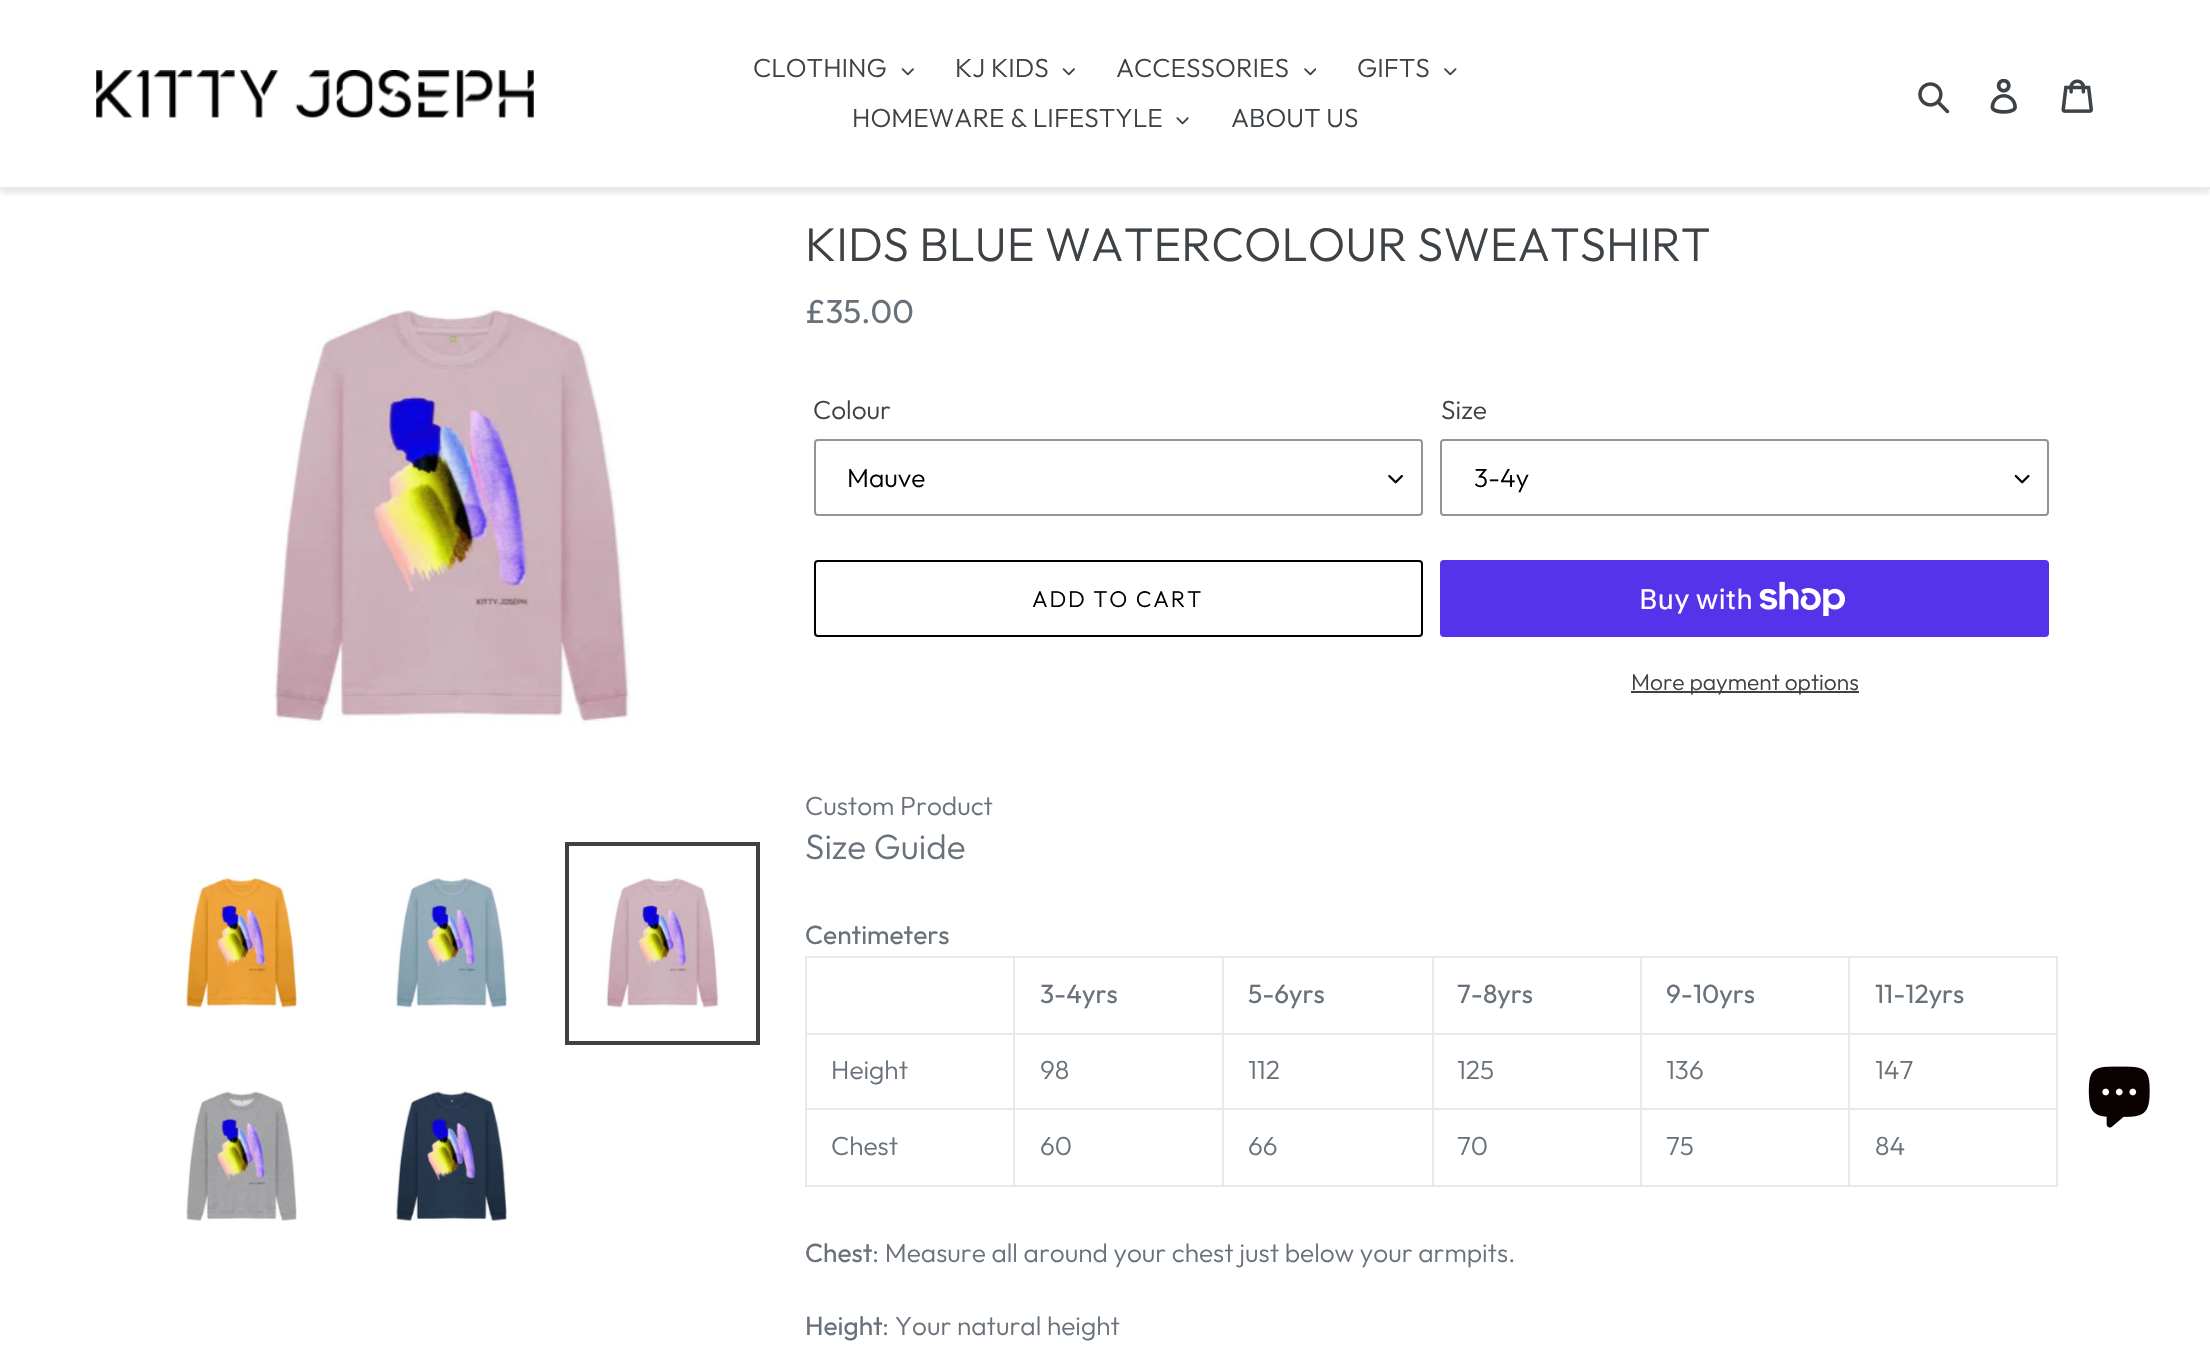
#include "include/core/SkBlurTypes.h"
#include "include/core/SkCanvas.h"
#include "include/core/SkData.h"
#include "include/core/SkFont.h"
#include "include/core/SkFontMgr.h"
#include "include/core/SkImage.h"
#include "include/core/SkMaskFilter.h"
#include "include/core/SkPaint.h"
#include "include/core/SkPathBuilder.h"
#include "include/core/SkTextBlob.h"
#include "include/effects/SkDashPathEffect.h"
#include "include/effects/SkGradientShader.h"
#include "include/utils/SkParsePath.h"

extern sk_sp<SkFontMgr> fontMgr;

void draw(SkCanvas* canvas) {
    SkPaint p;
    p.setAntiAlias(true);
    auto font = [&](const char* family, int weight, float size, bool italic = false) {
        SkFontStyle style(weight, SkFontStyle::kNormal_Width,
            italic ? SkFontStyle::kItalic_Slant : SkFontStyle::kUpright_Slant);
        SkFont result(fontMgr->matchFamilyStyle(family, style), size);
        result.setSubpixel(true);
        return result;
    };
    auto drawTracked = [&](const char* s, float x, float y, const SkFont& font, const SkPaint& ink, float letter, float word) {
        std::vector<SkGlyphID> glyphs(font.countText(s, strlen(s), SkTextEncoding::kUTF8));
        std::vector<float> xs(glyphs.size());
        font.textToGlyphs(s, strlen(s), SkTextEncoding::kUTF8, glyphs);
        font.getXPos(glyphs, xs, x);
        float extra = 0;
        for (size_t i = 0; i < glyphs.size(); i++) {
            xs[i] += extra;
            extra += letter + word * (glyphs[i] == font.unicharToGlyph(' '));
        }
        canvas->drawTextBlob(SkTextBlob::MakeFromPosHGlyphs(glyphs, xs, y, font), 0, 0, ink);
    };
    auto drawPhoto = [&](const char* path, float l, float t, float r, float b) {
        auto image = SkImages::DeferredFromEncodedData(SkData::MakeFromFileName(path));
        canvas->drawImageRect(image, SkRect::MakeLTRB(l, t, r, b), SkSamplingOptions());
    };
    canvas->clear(0xFFFFFFFF);
    canvas->save();
    canvas->clipRect(SkRect::MakeLTRB(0, 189, 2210, 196));
    p.setColor(0x1A000000);
    p.setMaskFilter(SkMaskFilter::MakeBlur(kNormal_SkBlurStyle, 3.5f));
    canvas->drawRect(SkRect::MakeLTRB(0, 4, 2210, 193), p);
    p.setMaskFilter(nullptr);
    canvas->restore();
    p.setColor(0xFFE8E9EB);
    canvas->drawRect(SkRect::MakeLTRB(0, 187, 2210, 189), p);
    drawPhoto("media/1.png", 96, 70, 534, 118);
    auto font1 = font("Outfit", 300, 26.25f);
    p.setColor(0xFF3D4246);
    canvas->drawString("CLOTHING", 753, 77, font1, p);
    drawPhoto("media/2.png", 901, 68, 914, 76);
    canvas->drawString("KJ KIDS", 955, 77, font1, p);
    drawPhoto("media/2.png", 1062, 68, 1075, 76);
    canvas->drawString("ACCESSORIES", 1116, 77, font1, p);
    drawPhoto("media/3.png", 1304, 68, 1316, 76);
    canvas->drawString("GIFTS", 1357, 77, font1, p);
    drawPhoto("media/4.png", 1444, 68, 1457, 76);
    canvas->drawString("HOMEWARE & LIFESTYLE", 852, 127, font1, p);
    drawPhoto("media/5.png", 1176, 117, 1189, 125);
    canvas->drawString("ABOUT US", 1231, 127, font1, p);
    drawPhoto("media/6.png", 1918, 82, 1950, 114);
    drawPhoto("media/7.png", 1990, 79, 2017, 114);
    drawPhoto("media/8.png", 2061, 79, 2093, 113);
    drawPhoto("media/9.png", 273, 306, 631, 725);
    drawPhoto("media/10.png", 185, 877, 297, 1008);
    drawPhoto("media/11.png", 395, 877, 507, 1008);
    p.setStyle(SkPaint::kStroke_Style);
    p.setStrokeWidth(4);
    canvas->drawRect(SkRect::MakeLTRB(567, 844, 758, 1043), p);
    drawPhoto("media/12.png", 606, 877, 719, 1008);
    drawPhoto("media/13.png", 186, 1091, 297, 1221);
    drawPhoto("media/14.png", 395, 1090, 507, 1221);
    auto font2 = font("Outfit", 300, 47.25f);
    p.setStyle(SkPaint::kFill_Style);
    canvas->drawString("KIDS BLUE WATERCOLOUR SWEATSHIRT", 805, 261, font2, p);
    auto font3 = font("Outfit", 400, 33);
    p.setColor(0xFF69727B);
    canvas->drawString("£35.00", 805, 323, font3, p);
    p.setColor(0xFF3D4246);
    canvas->drawString("Colour", 813, 419, font1, p);
    drawPhoto("media/15.png", 1388, 474, 1403, 484);
    p.setStyle(SkPaint::kStroke_Style);
    p.setStrokeWidth(2);
    p.setColor(0xFF949494);
    canvas->drawRoundRect(SkRect::MakeLTRB(815, 440, 1422, 515), 3, 3, p);
    p.setStyle(SkPaint::kFill_Style);
    p.setColor(0xFF000000);
    canvas->drawString("Mauve", 847, 487, font1, p);
    p.setColor(0xFF3D4246);
    canvas->drawString("Size", 1441, 419, font1, p);
    drawPhoto("media/16.png", 2014, 474, 2030, 484);
    p.setStyle(SkPaint::kStroke_Style);
    p.setColor(0xFF949494);
    canvas->drawRoundRect(SkRect::MakeLTRB(1441, 440, 2048, 515), 3, 3, p);
    p.setStyle(SkPaint::kFill_Style);
    p.setColor(0xFF000000);
    canvas->drawString("3-4y", 1474, 487, font1, p);
    p.setStyle(SkPaint::kStroke_Style);
    canvas->drawRoundRect(SkRect::MakeLTRB(815, 561, 1422, 636), 3, 3, p);
    auto font4 = font("Outfit", 300, 22.75f);
    p.setStyle(SkPaint::kFill_Style);
    drawTracked("ADD TO CART", 1032, 607, font4, p, 1.75f, 0);
    p.setColor(0xFF5433EB);
    canvas->drawRoundRect(SkRect::MakeLTRB(1440, 560, 2049, 637), 4, 4, p);
    auto font5 = font("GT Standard", 400, 28);
    p.setColor(0xFFFFFFFF);
    canvas->drawString("Buy with", 1639, 609, font5, p);
    drawPhoto("media/17.png", 1759, 581, 1845, 616);
    p.setColor(0xFF3D4246);
    canvas->drawRect(SkRect::MakeLTRB(1631, 691, 1859, 693), p);
    canvas->drawString("More payment options", 1631, 690, font4, p);
    p.setColor(0xFF69727B);
    canvas->drawString("Custom Product", 805, 815, font1, p);
    auto font6 = font("Outfit", 300, 35);
    canvas->drawString("Size Guide", 805, 859, font6, p);
    auto font7 = font("Outfit", 400, 26.25f);
    canvas->drawString("Centimeters", 805, 944, font7, p);
    {
        const struct { float l, t, r, b; SkColor color; } items[] = {
            {1848, 956, 2058, 958, 0xFFE8E9EB},
            {1848, 1033, 2058, 1035, 0xFFE8E9EB},
            {1848, 1108, 2058, 1110, 0xFFE8E9EB},
            {2056, 1108, 2058, 1187, 0xFFE8E9EB},
            {1848, 1185, 2058, 1187, 0xFFE8E9EB},
            {1848, 1108, 1850, 1187, 0xFFE8E9EB},
            {1640, 1108, 1850, 1110, 0xFFE8E9EB},
            {1848, 1033, 1850, 1110, 0xFFE8E9EB},
            {1640, 1033, 1850, 1035, 0xFFE8E9EB},
            {1848, 956, 1850, 1034, 0xFFE8E9EB},
            {1640, 956, 1850, 958, 0xFFE8E9EB},
            {1640, 1185, 1850, 1187, 0xFFE8E9EB},
            {1640, 1108, 1642, 1187, 0xFFE8E9EB},
            {1432, 1108, 1642, 1110, 0xFFE8E9EB},
            {1640, 1033, 1642, 1110, 0xFFE8E9EB},
            {1432, 1033, 1642, 1035, 0xFFE8E9EB},
            {1640, 956, 1642, 1034, 0xFFE8E9EB},
            {1432, 956, 1642, 958, 0xFFE8E9EB},
            {1432, 1185, 1642, 1187, 0xFFE8E9EB},
            {1432, 1108, 1434, 1187, 0xFFE8E9EB},
            {1222, 1108, 1433, 1110, 0xFFE8E9EB},
            {1432, 1033, 1434, 1110, 0xFFE8E9EB},
            {1222, 1033, 1433, 1035, 0xFFE8E9EB},
            {1432, 956, 1434, 1034, 0xFFE8E9EB},
            {1222, 956, 1433, 958, 0xFFE8E9EB},
            {1222, 1185, 1433, 1187, 0xFFE8E9EB},
            {1222, 1108, 1224, 1187, 0xFFE8E9EB},
            {1013, 1108, 1223, 1110, 0xFFE8E9EB},
            {1222, 1033, 1224, 1110, 0xFFE8E9EB},
            {1013, 1033, 1223, 1035, 0xFFE8E9EB},
            {1222, 956, 1224, 1034, 0xFFE8E9EB},
            {1013, 956, 1223, 958, 0xFFE8E9EB},
            {1013, 1185, 1223, 1187, 0xFFE8E9EB},
            {1013, 1108, 1015, 1187, 0xFFE8E9EB},
            {805, 1108, 1015, 1110, 0xFFE8E9EB},
            {1013, 1033, 1015, 1110, 0xFFE8E9EB},
            {805, 1033, 1015, 1035, 0xFFE8E9EB},
            {1013, 956, 1015, 1034, 0xFFE8E9EB},
            {805, 956, 1015, 958, 0xFFE8E9EB},
            {805, 1185, 1015, 1187, 0xFFE8E9EB},
            {805, 1108, 807, 1187, 0xFFE8E9EB},
            {805, 1033, 807, 1110, 0xFFE8E9EB},
            {805, 956, 807, 1034, 0xFFE8E9EB},
        };
        for (auto [l, t, r, b, color] : items) {
            p.setColor(color);
            canvas->drawRect(SkRect::MakeLTRB(l, t, r, b), p);
        }
    }
    p.setColor(0xFF69727B);
    {
        const struct { const char* s; float x, y; } items[] = {
            {"3-4yrs", 1040, 1003},
            {"5-6yrs", 1248, 1003},
            {"7-8yrs", 1457, 1003},
            {"9-10yrs", 1666, 1003},
        };
        for (auto [s, x, y] : items) {
            canvas->drawString(s, x, y, font7, p);
        }
    }
    p.setColor(0xFFE8E9EB);
    canvas->drawRect(SkRect::MakeLTRB(2056, 1033, 2058, 1110), p);
    canvas->drawRect(SkRect::MakeLTRB(2056, 956, 2058, 1034), p);
    p.setColor(0xFF69727B);
    canvas->drawString("11-12yrs", 1875, 1003, font7, p);
    {
        const struct { const char* s; float x, y; } items[] = {
            {"Height", 831, 1079},
            {"98", 1040, 1079},
            {"112", 1248, 1079},
            {"125", 1457, 1079},
            {"136", 1666, 1079},
            {"147", 1875, 1079},
            {"Chest", 831, 1155},
            {"60", 1040, 1155},
            {"66", 1248, 1155},
            {"70", 1457, 1155},
            {"75", 1666, 1155},
            {"84", 1875, 1155},
        };
        for (auto [s, x, y] : items) {
            canvas->drawString(s, x, y, font1, p);
        }
    }
    canvas->drawString("Chest", 805, 1262, font7, p);
    canvas->drawString(": Measure all around your chest just below your armpits.", 872, 1262, font1, p);
    canvas->drawString("Height", 805, 1335, font7, p);
    canvas->drawString(": Your natural height", 882, 1335, font1, p);
    drawPhoto("media/18.png", 2088, 1066, 2150, 1128);
}
